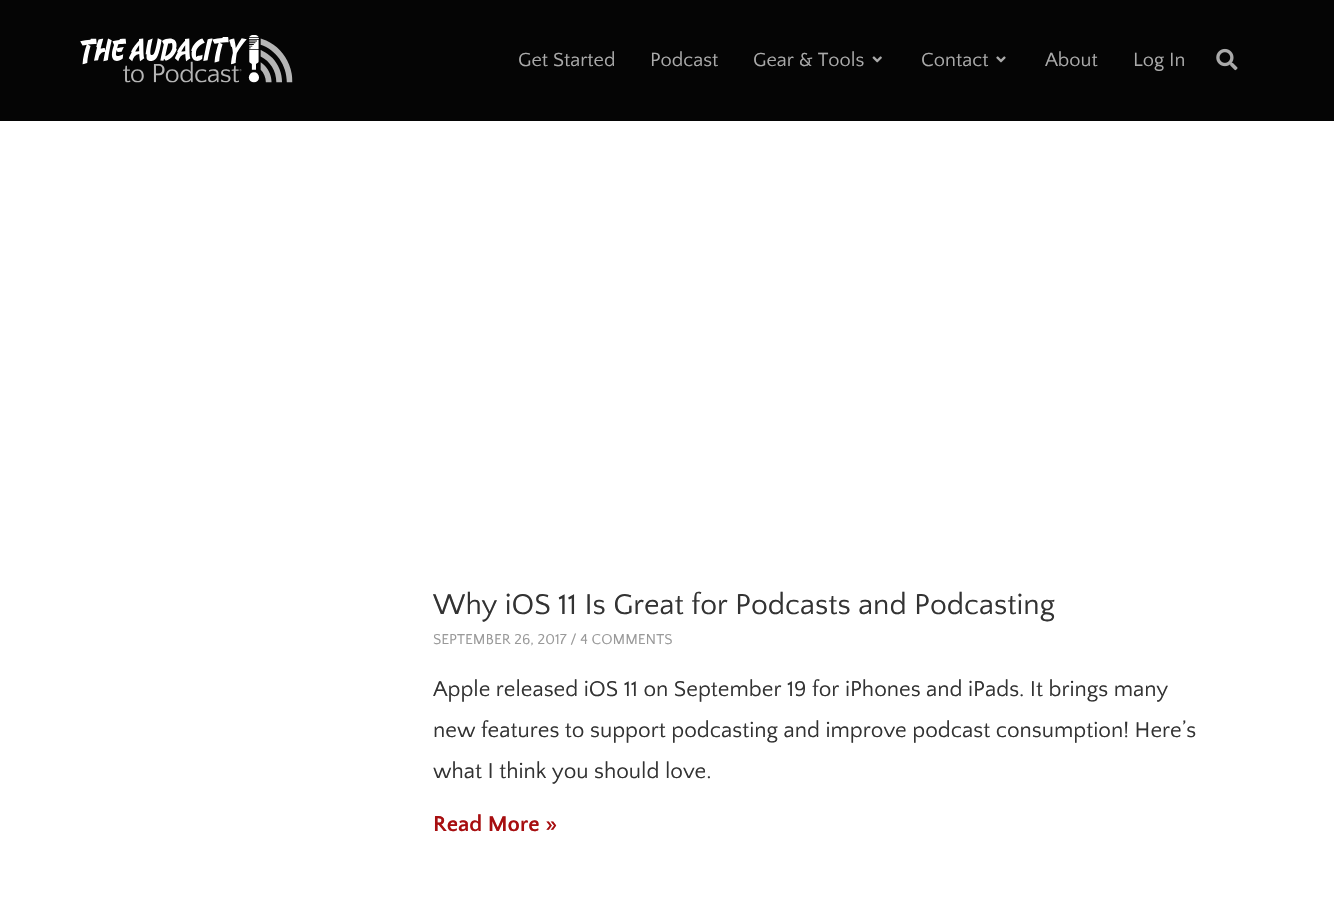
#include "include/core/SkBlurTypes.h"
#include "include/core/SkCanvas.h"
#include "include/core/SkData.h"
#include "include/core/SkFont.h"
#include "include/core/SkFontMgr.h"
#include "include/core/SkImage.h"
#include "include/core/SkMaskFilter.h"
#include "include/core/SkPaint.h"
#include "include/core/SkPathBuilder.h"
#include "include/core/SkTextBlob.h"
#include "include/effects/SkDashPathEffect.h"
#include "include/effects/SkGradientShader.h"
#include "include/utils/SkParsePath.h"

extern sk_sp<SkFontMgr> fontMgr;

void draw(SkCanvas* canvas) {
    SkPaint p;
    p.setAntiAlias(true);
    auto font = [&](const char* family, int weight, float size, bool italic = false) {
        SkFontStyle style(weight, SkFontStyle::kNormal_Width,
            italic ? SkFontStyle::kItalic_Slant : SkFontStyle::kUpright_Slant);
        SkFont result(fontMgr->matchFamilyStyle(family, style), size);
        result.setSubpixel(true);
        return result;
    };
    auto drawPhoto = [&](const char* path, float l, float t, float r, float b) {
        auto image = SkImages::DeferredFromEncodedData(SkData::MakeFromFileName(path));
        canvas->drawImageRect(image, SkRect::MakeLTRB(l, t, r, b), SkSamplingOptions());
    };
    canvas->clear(0xFFFFFFFF);
    p.setColor(0xFF050505);
    canvas->drawRect(SkRect::MakeLTRB(0, 0, 1334, 121), p);
    drawPhoto("media/1.png", 80, 35, 293, 83);
    auto font1 = font("Quattrocento Sans", 400, 20);
    p.setColor(0xFFAAAAAA);
    {
        const struct { const char* s; float x, y; } items[] = {
            {"Get Started", 518, 66},
            {"Podcast", 650, 66},
            {"Gear & Tools", 753, 66},
        };
        for (auto [s, x, y] : items) {
            canvas->drawString(s, x, y, font1, p);
        }
    }
    drawPhoto("media/2.png", 872, 56, 882, 63);
    canvas->drawString("Contact", 921, 66, font1, p);
    drawPhoto("media/3.png", 996, 56, 1006, 63);
    canvas->drawString("About", 1045, 66, font1, p);
    canvas->drawString("Log In", 1133, 66, font1, p);
    drawPhoto("media/4.png", 1216, 48, 1238, 71);
    auto font2 = font("Quattrocento Sans", 400, 30);
    p.setColor(0xFF333333);
    canvas->drawString("Why iOS 11 Is Great for Podcasts and Podcasting", 433, 614, font2, p);
    auto font3 = font("Quattrocento Sans", 400, 15);
    p.setColor(0xFF999999);
    canvas->drawString("SEPTEMBER 26, 2017 / 4 COMMENTS", 433, 644, font3, p);
    auto font4 = font("Quattrocento Sans", 400, 22.5f);
    p.setColor(0xFF333333);
    {
        const struct { const char* s; float x, y; } items[] = {
            {"Apple released iOS 11 on September 19 for iPhones and iPads. It brings many", 433, 696},
            {"new features to support podcasting and improve podcast consumption! Here’s", 433, 737},
            {"what I think you should love.", 433, 778},
        };
        for (auto [s, x, y] : items) {
            canvas->drawString(s, x, y, font4, p);
        }
    }
    auto font5 = font("Quattrocento Sans", 700, 22.5f);
    p.setColor(0xFFA70E10);
    canvas->drawString("Read More »", 433, 831, font5, p);
}
